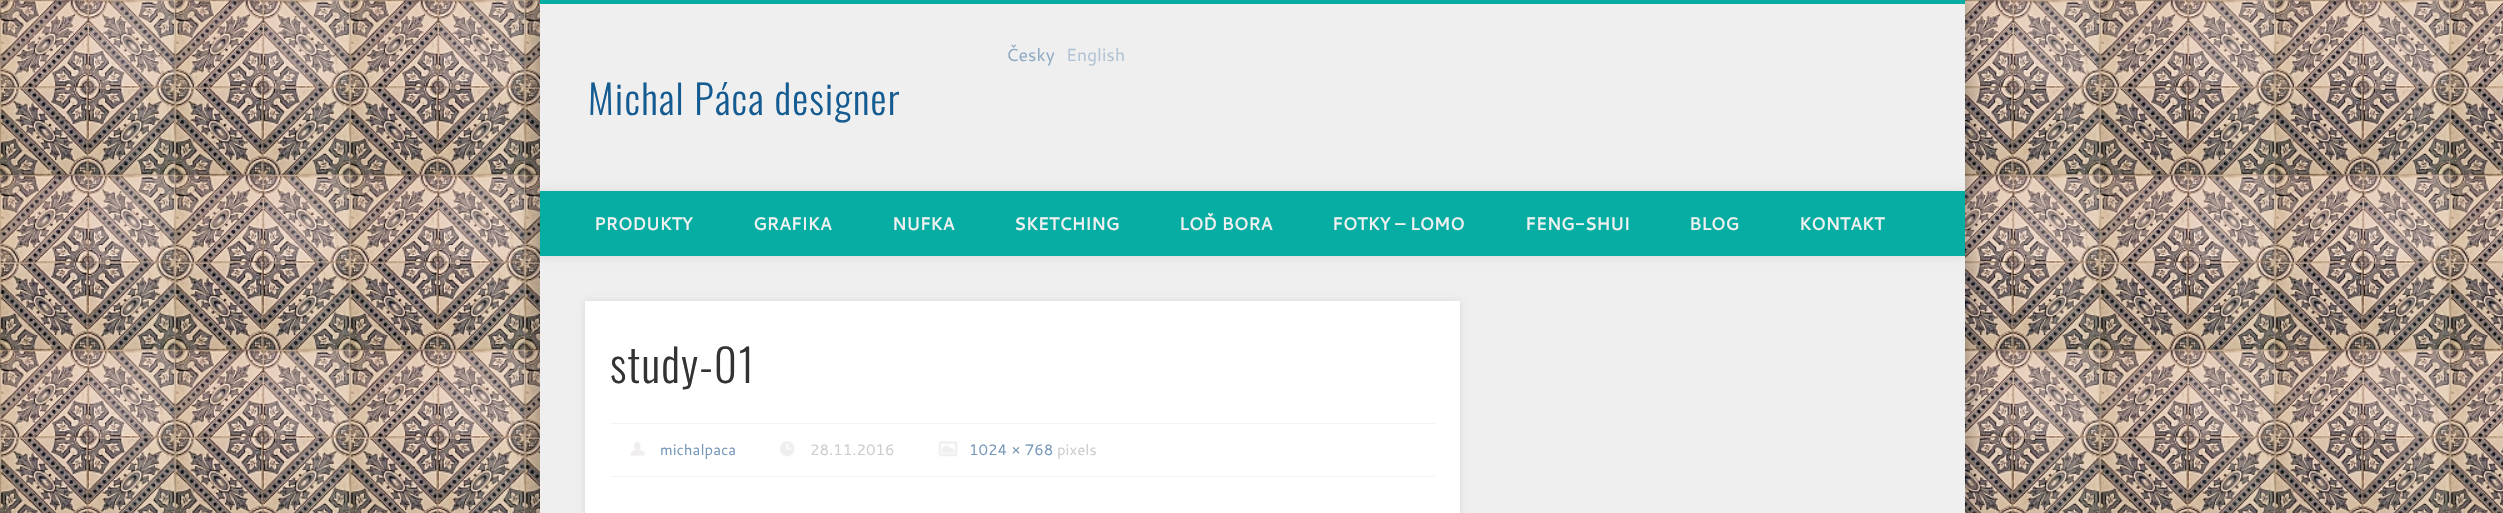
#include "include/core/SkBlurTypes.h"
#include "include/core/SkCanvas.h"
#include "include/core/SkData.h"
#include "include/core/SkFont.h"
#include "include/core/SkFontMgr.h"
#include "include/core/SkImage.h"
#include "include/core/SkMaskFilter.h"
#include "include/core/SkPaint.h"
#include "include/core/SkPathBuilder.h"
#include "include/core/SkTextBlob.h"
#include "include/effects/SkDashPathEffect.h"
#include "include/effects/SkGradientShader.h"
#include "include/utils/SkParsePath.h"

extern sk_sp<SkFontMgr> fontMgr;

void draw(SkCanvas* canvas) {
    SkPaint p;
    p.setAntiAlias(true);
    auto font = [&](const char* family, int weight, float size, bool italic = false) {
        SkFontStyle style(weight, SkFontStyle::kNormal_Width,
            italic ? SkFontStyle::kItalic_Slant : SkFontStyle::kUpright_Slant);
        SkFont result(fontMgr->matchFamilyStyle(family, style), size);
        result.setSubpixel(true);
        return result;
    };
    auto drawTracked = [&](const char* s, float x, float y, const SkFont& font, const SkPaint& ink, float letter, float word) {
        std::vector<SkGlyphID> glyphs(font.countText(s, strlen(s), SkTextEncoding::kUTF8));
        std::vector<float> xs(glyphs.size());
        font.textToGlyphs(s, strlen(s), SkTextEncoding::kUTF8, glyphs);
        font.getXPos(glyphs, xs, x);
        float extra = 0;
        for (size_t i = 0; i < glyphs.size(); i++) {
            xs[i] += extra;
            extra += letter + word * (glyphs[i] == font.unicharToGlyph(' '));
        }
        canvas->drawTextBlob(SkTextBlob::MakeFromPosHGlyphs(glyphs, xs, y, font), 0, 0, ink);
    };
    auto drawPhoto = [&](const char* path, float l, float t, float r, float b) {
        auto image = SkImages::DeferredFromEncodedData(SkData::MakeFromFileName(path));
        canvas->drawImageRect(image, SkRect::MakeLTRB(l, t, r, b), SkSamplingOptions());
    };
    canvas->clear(0xFFFFFFFF);
    drawPhoto("media/1.png", 0, 0, 2503, 513);
    p.setColor(0x66000000);
    p.setMaskFilter(SkMaskFilter::MakeBlur(kNormal_SkBlurStyle, 11));
    canvas->drawRect(SkRect::MakeLTRB(540, 0, 1965, 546), p);
    p.setMaskFilter(nullptr);
    p.setColor(0xFFEFEFEF);
    canvas->drawRect(SkRect::MakeLTRB(540, 4, 1965, 513), p);
    p.setColor(0xFF05ADA2);
    canvas->drawRect(SkRect::MakeLTRB(540, 0, 1965, 4), p);
    auto font1 = font("Cantarell", 400, 17.5f);
    p.setColor(0xFF8DA9C4);
    canvas->drawString("Česky", 1006, 61, font1, p);
    p.setColor(0xFFB2C3D4);
    canvas->drawString("English", 1066, 61, font1, p);
    auto font2 = font("Oswald", 300, 40);
    p.setColor(0xFF145B91);
    drawTracked("Michal Páca designer", 588, 115, font2, p, 1.25f, 0);
    canvas->save();
    canvas->clipRect(SkRect::MakeLTRB(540, 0, 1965, 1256));
    p.setColor(0x1A000000);
    p.setMaskFilter(SkMaskFilter::MakeBlur(kNormal_SkBlurStyle, 4.5f));
    canvas->drawRect(SkRect::MakeLTRB(540, 191, 1965, 256), p);
    p.setMaskFilter(nullptr);
    canvas->restore();
    p.setColor(0xFF05ADA2);
    canvas->drawRect(SkRect::MakeLTRB(540, 191, 1965, 256), p);
    auto font3 = font("Cantarell", 700, 17.5f);
    p.setColor(0xFFF0F0F0);
    {
        const struct { const char* s; float x, y; } items[] = {
            {"PRODUKTY", 594, 230},
            {"GRAFIKA", 753, 230},
            {"NUFKA", 892, 230},
            {"SKETCHING", 1014, 230},
            {"LOĎ BORA", 1179, 230},
            {"FOTKY – LOMO", 1332, 230},
            {"FENG-SHUI", 1525, 230},
            {"BLOG", 1689, 230},
            {"KONTAKT", 1799, 230},
        };
        for (auto [s, x, y] : items) {
            canvas->drawString(s, x, y, font3, p);
        }
    }
    p.setColor(0x1A000000);
    p.setMaskFilter(SkMaskFilter::MakeBlur(kNormal_SkBlurStyle, 3));
    canvas->drawRect(SkRect::MakeLTRB(585, 301, 1460, 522), p);
    p.setMaskFilter(nullptr);
    p.setColor(0xFFFFFFFF);
    canvas->drawRect(SkRect::MakeLTRB(585, 301, 1460, 513), p);
    auto font4 = font("Oswald", 300, 45);
    p.setColor(0xFF333333);
    drawTracked("study-01", 610, 383, font4, p, 1.25f, 0);
    p.setColor(0xFFF4F4F4);
    canvas->drawRect(SkRect::MakeLTRB(610, 423, 1435, 424), p);
    canvas->drawRect(SkRect::MakeLTRB(610, 476, 1435, 477), p);
    drawPhoto("media/2.png", 630, 441, 645, 456);
    auto font5 = font("Cantarell", 400, 15);
    p.setColor(0xFF7597B9);
    canvas->drawString("michalpaca", 660, 455, font5, p);
    drawPhoto("media/3.png", 780, 441, 795, 457);
    p.setColor(0xFFCCCCCC);
    canvas->drawString("28.11.2016", 810, 455, font5, p);
    drawPhoto("media/4.png", 938, 441, 958, 457);
    p.setColor(0xFF7597B9);
    canvas->drawString("1024 × 768", 969, 455, font5, p);
    p.setColor(0xFFCCCCCC);
    canvas->drawString("pixels", 1057, 455, font5, p);
}
